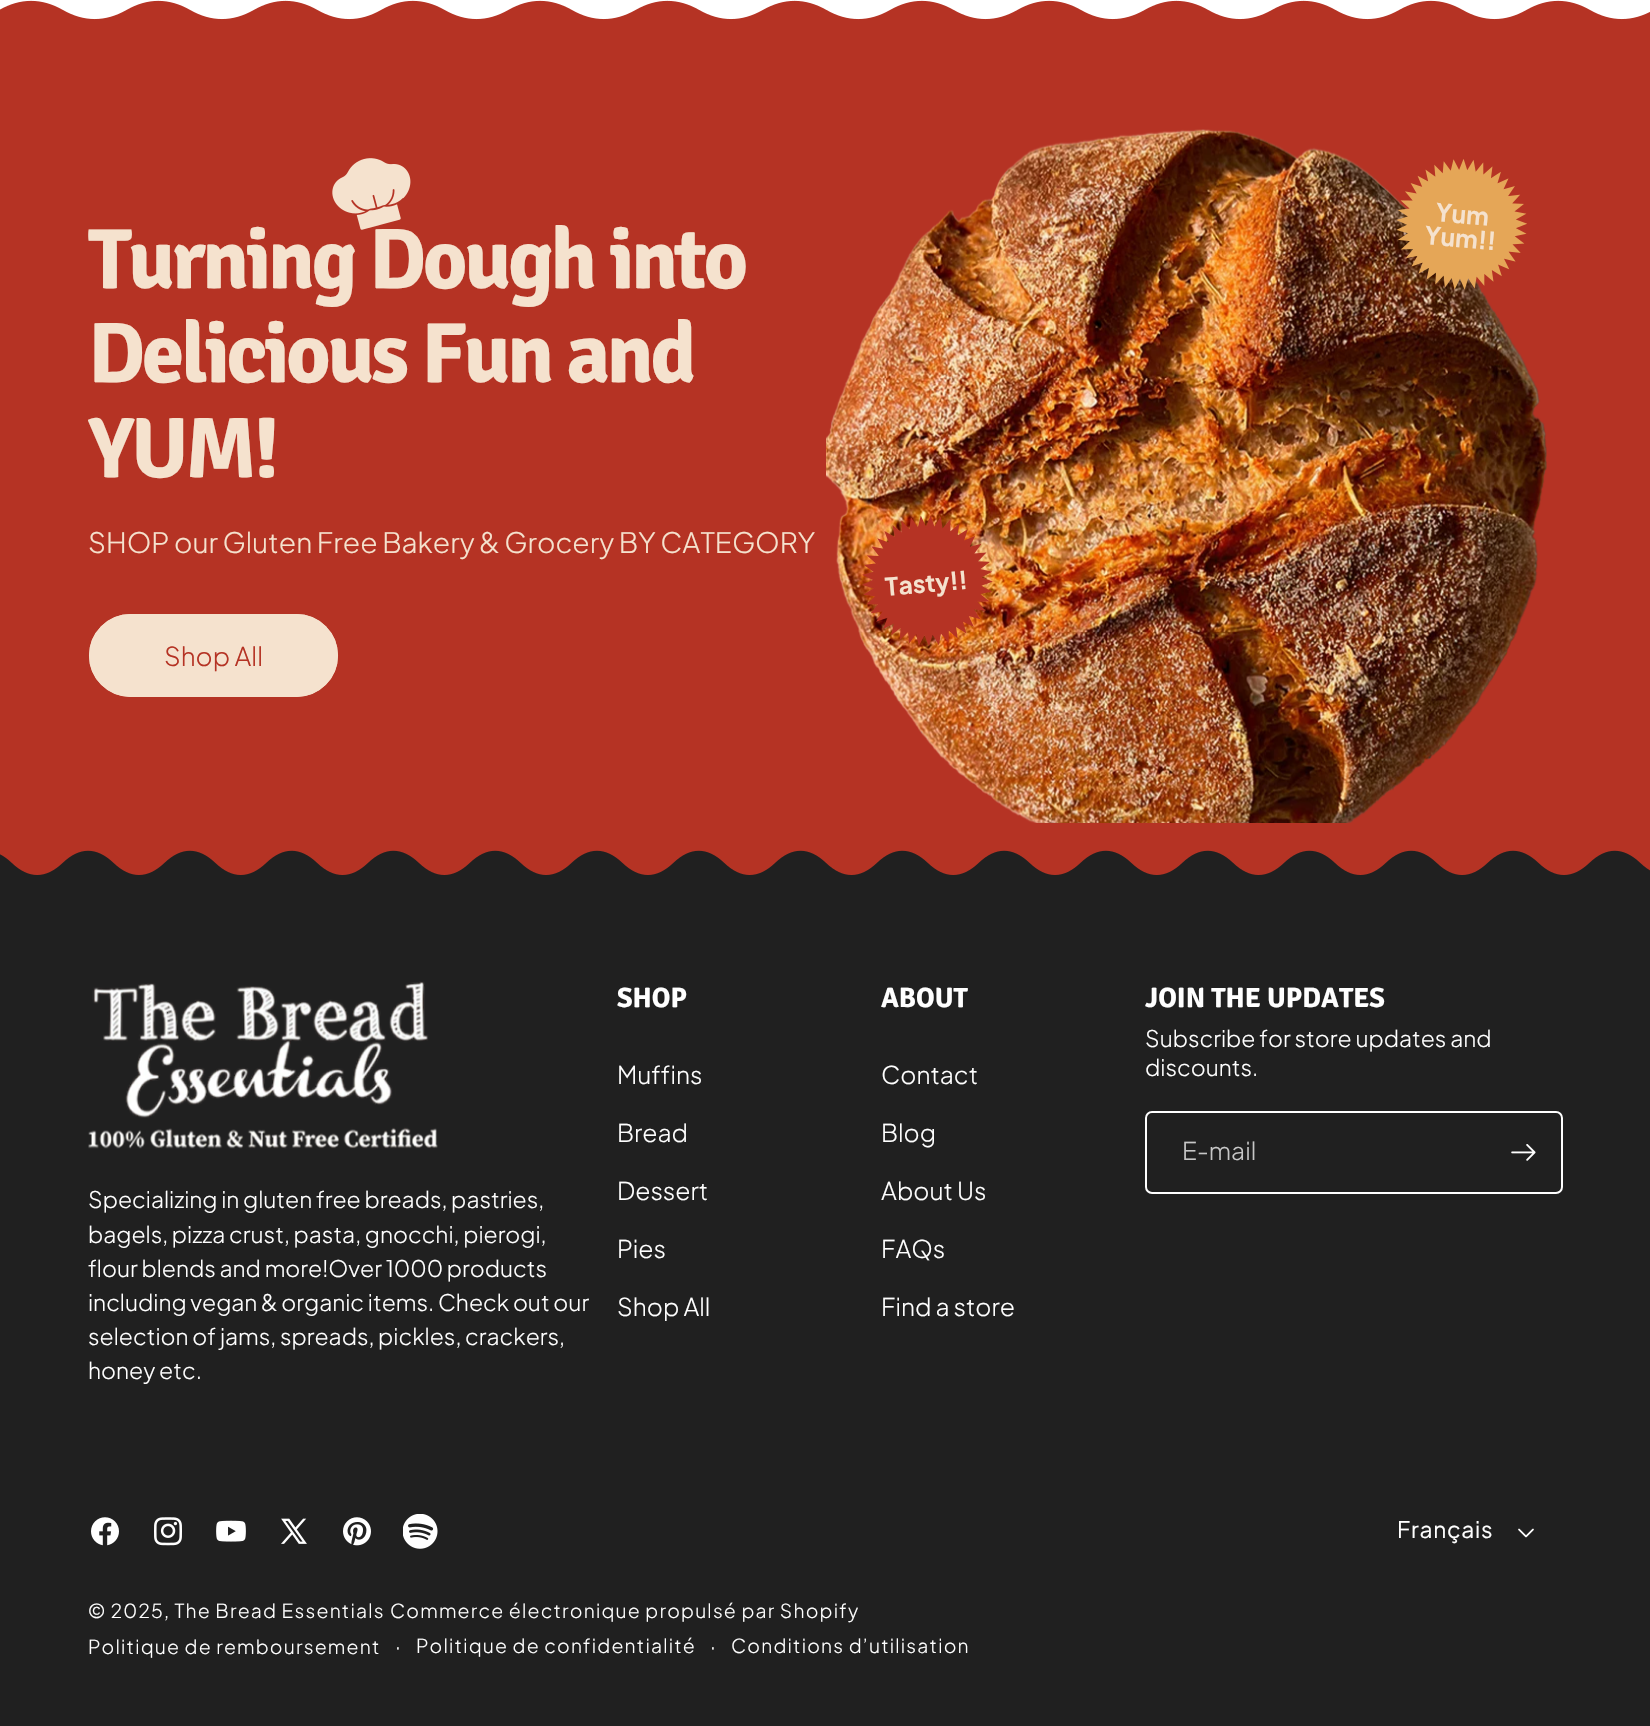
#include "include/core/SkBlurTypes.h"
#include "include/core/SkCanvas.h"
#include "include/core/SkData.h"
#include "include/core/SkFont.h"
#include "include/core/SkFontMgr.h"
#include "include/core/SkImage.h"
#include "include/core/SkMaskFilter.h"
#include "include/core/SkPaint.h"
#include "include/core/SkPathBuilder.h"
#include "include/core/SkTextBlob.h"
#include "include/effects/SkDashPathEffect.h"
#include "include/effects/SkGradientShader.h"
#include "include/utils/SkParsePath.h"

extern sk_sp<SkFontMgr> fontMgr;

void draw(SkCanvas* canvas) {
    SkPaint p;
    p.setAntiAlias(true);
    auto font = [&](const char* family, int weight, float size, bool italic = false) {
        SkFontStyle style(weight, SkFontStyle::kNormal_Width,
            italic ? SkFontStyle::kItalic_Slant : SkFontStyle::kUpright_Slant);
        SkFont result(fontMgr->matchFamilyStyle(family, style), size);
        result.setSubpixel(true);
        return result;
    };
    auto drawTracked = [&](const char* s, float x, float y, const SkFont& font, const SkPaint& ink, float letter, float word) {
        std::vector<SkGlyphID> glyphs(font.countText(s, strlen(s), SkTextEncoding::kUTF8));
        std::vector<float> xs(glyphs.size());
        font.textToGlyphs(s, strlen(s), SkTextEncoding::kUTF8, glyphs);
        font.getXPos(glyphs, xs, x);
        float extra = 0;
        for (size_t i = 0; i < glyphs.size(); i++) {
            xs[i] += extra;
            extra += letter + word * (glyphs[i] == font.unicharToGlyph(' '));
        }
        canvas->drawTextBlob(SkTextBlob::MakeFromPosHGlyphs(glyphs, xs, y, font), 0, 0, ink);
    };
    auto drawPhoto = [&](const char* path, float l, float t, float r, float b) {
        auto image = SkImages::DeferredFromEncodedData(SkData::MakeFromFileName(path));
        canvas->drawImageRect(image, SkRect::MakeLTRB(l, t, r, b), SkSamplingOptions());
    };
    canvas->clear(0xFFFFFFFF);
    p.setColor(0xFFB53324);
    canvas->drawRect(SkRect::MakeLTRB(0, 39, 1650, 823), p);
    drawPhoto("media/1.png", 0, 0, 1650, 39);
    canvas->save();
    canvas->clipRect(SkRect::MakeLTRB(88, 123, 826, 823));
    auto font1 = font("Signika", 700, 85.75f);
    p.setColor(0xFFF5E2CE);
    drawTracked("T", 88, 288, font1, p, -3.4f, 0);
    canvas->restore();
    drawTracked("urning", 128, 288, font1, p, -3.4f, 0);
    drawPhoto("media/2.png", 332, 158, 411, 230);
    drawTracked("Dough into", 369, 288, font1, p, -3.4f, 0);
    drawTracked("Delicious Fun and", 88, 382, font1, p, -3.4f, 0);
    canvas->save();
    canvas->clipRect(SkRect::MakeLTRB(88, 123, 826, 823));
    drawTracked("Y", 88, 477, font1, p, -3.4f, 0);
    canvas->restore();
    drawTracked("UM!", 131, 477, font1, p, -3.4f, 0);
    auto font2 = font("Plus Jakarta Sans", 300, 28);
    canvas->drawString("SHOP our Gluten Free Bakery & Grocery BY CATEGORY", 88, 553, font2, p);
    canvas->drawRoundRect(SkRect::MakeLTRB(89, 614, 338, 697), 41.5f, 41.5f, p);
    p.setStyle(SkPaint::kStroke_Style);
    p.setStrokeWidth(2);
    canvas->drawRoundRect(SkRect::MakeLTRB(90, 615, 337, 696), 40.5f, 40.5f, p);
    auto font3 = font("Plus Jakarta Sans", 300, 26);
    p.setStyle(SkPaint::kFill_Style);
    p.setColor(0xFFB53324);
    canvas->drawString("Shop All", 164, 666, font3, p);
    drawPhoto("media/3.png", 826, 129, 1547, 823);
    drawPhoto("media/4.png", 1396, 159, 1527, 290);
    auto font4 = font("Plus Jakarta Sans", 700, 24.5f);
    p.setColor(0xFFF5E2CE);
    canvas->save();
    canvas->rotate(5, 1435, 221);
    canvas->drawString("Yum", 1435, 221, font4, p);
    canvas->restore();
    canvas->save();
    canvas->rotate(5, 1424, 244);
    canvas->drawString("Yum!!", 1424, 244, font4, p);
    canvas->restore();
    drawPhoto("media/5.png", 862, 515, 993, 646);
    canvas->save();
    canvas->rotate(-5, 886, 596);
    canvas->drawString("Tasty!!", 886, 596, font4, p);
    canvas->restore();
    p.setColor(0xFF202020);
    canvas->drawRect(SkRect::MakeLTRB(0, 850, 1650, 1726), p);
    drawPhoto("media/6.png", 0, 823, 1650, 875);
    auto font5 = font("Signika", 700, 28);
    p.setColor(0xFFFFFFFF);
    canvas->drawString("SHOP", 617, 1007, font5, p);
    auto font6 = font("Plus Jakarta Sans", 300, 24.5f);
    {
        const struct { const char* s; float x, y; } items[] = {
            {"Muffins", 617, 1084},
            {"Bread", 617, 1142},
            {"Dessert", 617, 1200},
            {"Pies", 617, 1258},
            {"Shop All", 617, 1316},
        };
        for (auto [s, x, y] : items) {
            canvas->drawString(s, x, y, font6, p);
        }
    }
    canvas->drawString("ABOUT", 881, 1007, font5, p);
    {
        const struct { const char* s; float x, y; } items[] = {
            {"Contact", 881, 1084},
            {"Blog", 881, 1142},
            {"About Us", 881, 1200},
            {"FAQs", 881, 1258},
            {"Find a store", 881, 1316},
        };
        for (auto [s, x, y] : items) {
            canvas->drawString(s, x, y, font6, p);
        }
    }
    canvas->drawString("JOIN THE UPDATES", 1145, 1007, font5, p);
    auto font7 = font("Plus Jakarta Sans", 300, 22.75f);
    canvas->drawString("Subscribe for store updates and", 1145, 1047, font7, p);
    canvas->drawString("discounts.", 1145, 1076, font7, p);
    p.setStyle(SkPaint::kStroke_Style);
    canvas->drawRoundRect(SkRect::MakeLTRB(1146, 1112, 1562, 1193), 6, 6, p);
    p.setStyle(SkPaint::kFill_Style);
    p.setColor(0xFFC7C7C7);
    canvas->drawString("E-mail", 1182, 1160, font6, p);
    drawPhoto("media/7.png", 1511, 1144, 1536, 1161);
    drawPhoto("media/8.png", 88, 981, 438, 1149);
    p.setColor(0xFFFFFFFF);
    {
        const struct { const char* s; float x, y; } items[] = {
            {"Specializing in gluten free breads, pastries,", 88, 1208},
            {"bagels, pizza crust, pasta, gnocchi, pierogi,", 88, 1243},
            {"flour blends and more!Over 1000 products", 88, 1277},
            {"including vegan & organic items. Check out our", 88, 1311},
            {"selection of jams, spreads, pickles, crackers,", 88, 1345},
            {"honey etc.", 88, 1379},
        };
        for (auto [s, x, y] : items) {
            canvas->drawString(s, x, y, font7, p);
        }
    }
    drawPhoto("media/9.png", 91, 1517, 119, 1546);
    drawPhoto("media/10.png", 154, 1517, 182, 1546);
    drawPhoto("media/11.png", 216, 1520, 246, 1542);
    drawPhoto("media/12.png", 281, 1518, 307, 1544);
    drawPhoto("media/13.png", 343, 1517, 371, 1546);
    drawPhoto("media/14.png", 403, 1514, 438, 1549);
    auto font8 = font("Plus Jakarta Sans", 400, 22.75f);
    drawTracked("Français", 1397, 1538, font8, p, 0.75f, 0);
    drawPhoto("media/15.png", 1518, 1528, 1534, 1538);
    auto font9 = font("Plus Jakarta Sans", 300, 19.25f);
    {
        const struct { const char* s; float x, y; } items[] = {
            {"© 2025, The Bread Essentials", 88, 1618},
            {"Commerce électronique propulsé par Shopify", 390, 1618},
            {"Politique de remboursement", 88, 1654},
        };
        for (auto [s, x, y] : items) {
            drawTracked(s, x, y, font9, p, 1.2f, 0);
        }
    }
    auto font10 = font("Plus Jakarta Sans", 300, 21);
    drawTracked("·", 395, 1654, font10, p, 1.2f, 0);
    drawTracked("Politique de confidentialité", 416, 1653, font9, p, 1.2f, 0);
    drawTracked("·", 710, 1654, font10, p, 1.2f, 0);
    drawTracked("Conditions d’utilisation", 731, 1653, font9, p, 1.2f, 0);
}
